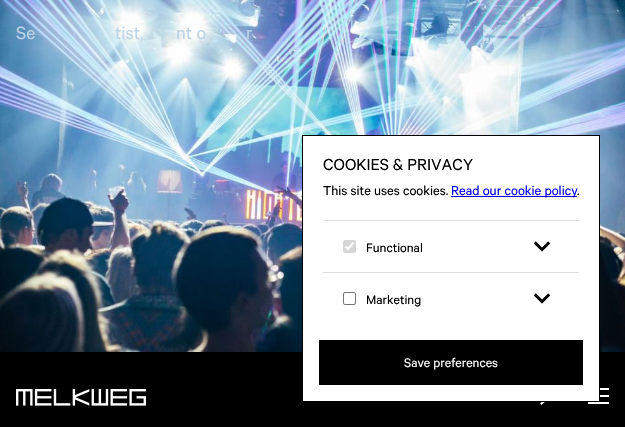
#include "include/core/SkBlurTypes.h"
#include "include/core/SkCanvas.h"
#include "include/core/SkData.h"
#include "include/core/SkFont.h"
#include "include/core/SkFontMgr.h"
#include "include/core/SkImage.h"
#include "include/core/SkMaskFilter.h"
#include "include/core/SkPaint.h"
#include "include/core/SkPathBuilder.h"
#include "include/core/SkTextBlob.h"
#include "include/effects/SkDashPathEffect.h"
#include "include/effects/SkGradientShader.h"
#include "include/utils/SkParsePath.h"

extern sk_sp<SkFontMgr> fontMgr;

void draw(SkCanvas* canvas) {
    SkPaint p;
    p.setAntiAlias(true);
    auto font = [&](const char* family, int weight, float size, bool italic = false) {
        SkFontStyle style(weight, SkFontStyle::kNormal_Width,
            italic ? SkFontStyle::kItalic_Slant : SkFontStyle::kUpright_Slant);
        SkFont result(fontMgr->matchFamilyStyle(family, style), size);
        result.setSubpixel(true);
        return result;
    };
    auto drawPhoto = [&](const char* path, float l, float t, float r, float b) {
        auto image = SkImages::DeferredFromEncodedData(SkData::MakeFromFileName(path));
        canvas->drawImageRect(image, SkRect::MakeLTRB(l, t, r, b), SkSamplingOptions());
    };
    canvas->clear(0xFF000000);
    drawPhoto("media/1.png", 0, 0, 625, 352);
    auto font1 = font("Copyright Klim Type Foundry", 400, 20);
    p.setColor(0xFFBDD4E7);
    {
        const struct { const char* s; float x, y; } items[] = {
            {"Se", 16, 39},
            {"tist,", 115, 39},
            {"nt o", 176, 39},
            {"r", 246, 39},
        };
        for (auto [s, x, y] : items) {
            canvas->drawString(s, x, y, font1, p);
        }
    }
    p.setStyle(SkPaint::kStroke_Style);
    p.setStrokeWidth(2.1f);
    p.setStrokeCap(SkPaint::kSquare_Cap);
    p.setColor(0xFFFFFFFF);
    canvas->drawPath(SkPathBuilder().moveTo(546.5f, 399).lineTo(541.5f, 403.5f).detach(), p);
    p.setStyle(SkPaint::kFill_Style);
    canvas->drawRect(SkRect::MakeLTRB(302.5f, 135.5f, 599.5f, 401.5f), p);
    p.setStyle(SkPaint::kStroke_Style);
    p.setStrokeWidth(1);
    p.setStrokeCap(SkPaint::kButt_Cap);
    p.setColor(0xFF000000);
    canvas->drawRect(SkRect::MakeLTRB(302.5f, 135.5f, 599.5f, 401.5f), p);
    auto font2 = font("Copyright Klim Type Foundry", 400, 18);
    p.setStyle(SkPaint::kFill_Style);
    canvas->drawString("COOKIES & PRIVACY", 323, 170, font2, p);
    auto font3 = font("Copyright Klim Type Foundry", 400, 14.5f);
    canvas->drawString("This site uses cookies.", 323, 195, font3, p);
    p.setColor(0xFF0000EE);
    canvas->drawRect(SkRect::MakeLTRB(451, 196, 577, 197), p);
    canvas->drawString("Read our cookie policy", 451, 195, font3, p);
    p.setColor(0xFF000000);
    canvas->drawString(".", 577, 195, font3, p);
    p.setColor(0xFFDDDDDD);
    canvas->drawRect(SkRect::MakeLTRB(323, 220, 579, 221), p);
    p.setColor(0xFFD6D6D6);
    canvas->drawRoundRect(SkRect::MakeLTRB(343, 240, 356, 253), 2, 2, p);
    p.setStyle(SkPaint::kStroke_Style);
    p.setStrokeWidth(2.1f);
    p.setColor(0xFFFFFFFF);
    canvas->drawPath(SkPathBuilder().moveTo(345.5f, 246.5f).lineTo(348, 249).lineTo(353.5f, 242.5f).detach(), p);
    auto font4 = font("Copyright Klim Type Foundry", 400, 14);
    p.setStyle(SkPaint::kFill_Style);
    p.setColor(0xFF000000);
    canvas->drawString("Functional", 366, 252, font4, p);
    drawPhoto("media/2.png", 533, 241, 551, 252);
    p.setColor(0xFFDDDDDD);
    canvas->drawRect(SkRect::MakeLTRB(323, 272, 579, 273), p);
    p.setStyle(SkPaint::kStroke_Style);
    p.setStrokeWidth(1);
    p.setColor(0xFF767676);
    canvas->drawRoundRect(SkRect::MakeLTRB(343.5f, 292.5f, 355.5f, 304.5f), 1.5f, 1.5f, p);
    p.setStyle(SkPaint::kFill_Style);
    p.setColor(0xFF000000);
    canvas->drawString("Marketing", 366, 304, font4, p);
    drawPhoto("media/2.png", 533, 293, 551, 304);
    canvas->drawRect(SkRect::MakeLTRB(319, 340, 583, 385), p);
    p.setColor(0xFFFFFFFF);
    canvas->drawString("Save preferences", 404, 367, font4, p);
    drawPhoto("media/3.png", 16, 389, 146, 406);
    {
        const struct { float l, t, r, b; SkColor color; } items[] = {
            {600, 388, 609, 390, 0xFFFFFFFF},
            {600, 395, 609, 397, 0xFFFFFFFF},
            {588, 402, 609, 404, 0xFFFFFFFF},
        };
        for (auto [l, t, r, b, color] : items) {
            p.setColor(color);
            canvas->drawRect(SkRect::MakeLTRB(l, t, r, b), p);
        }
    }
}
